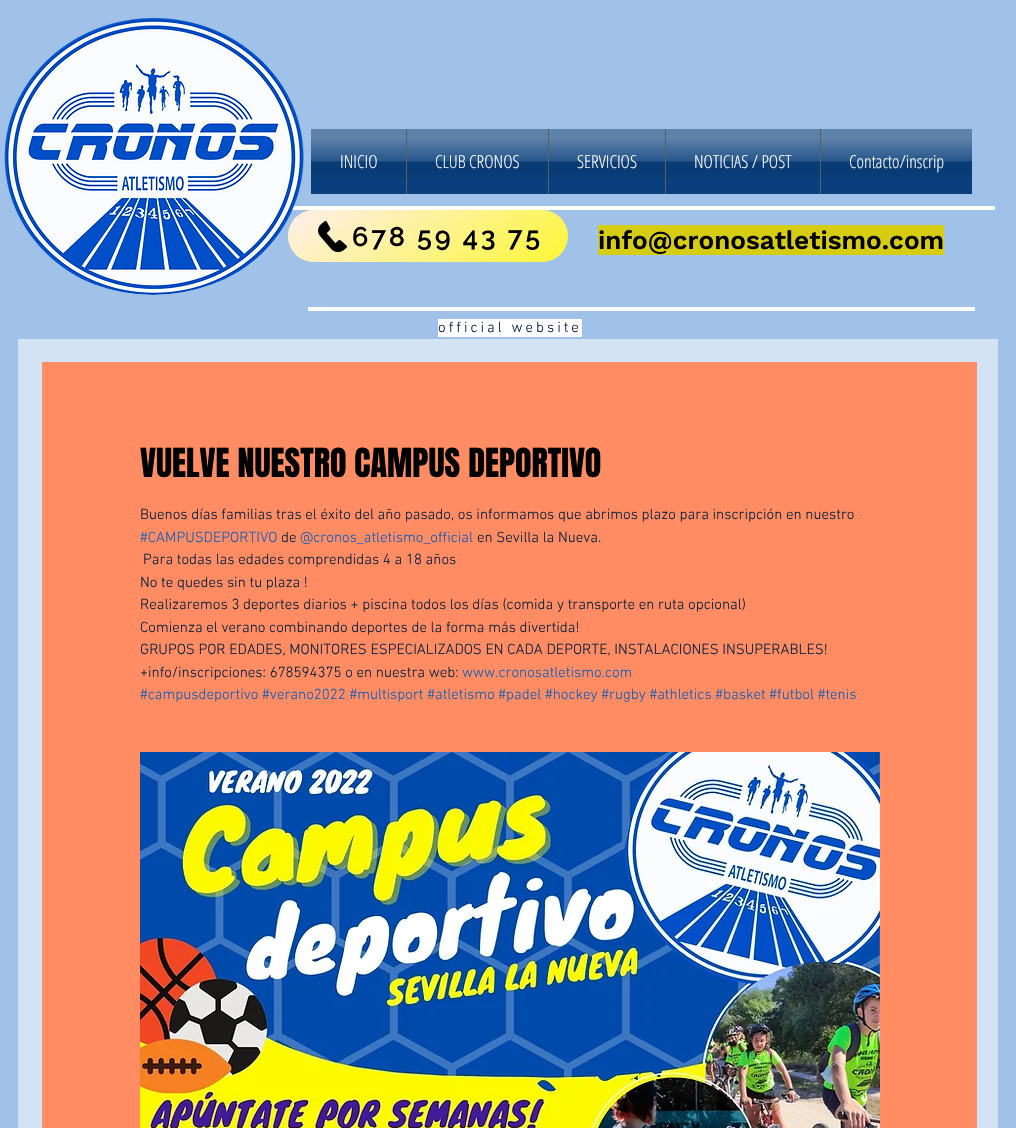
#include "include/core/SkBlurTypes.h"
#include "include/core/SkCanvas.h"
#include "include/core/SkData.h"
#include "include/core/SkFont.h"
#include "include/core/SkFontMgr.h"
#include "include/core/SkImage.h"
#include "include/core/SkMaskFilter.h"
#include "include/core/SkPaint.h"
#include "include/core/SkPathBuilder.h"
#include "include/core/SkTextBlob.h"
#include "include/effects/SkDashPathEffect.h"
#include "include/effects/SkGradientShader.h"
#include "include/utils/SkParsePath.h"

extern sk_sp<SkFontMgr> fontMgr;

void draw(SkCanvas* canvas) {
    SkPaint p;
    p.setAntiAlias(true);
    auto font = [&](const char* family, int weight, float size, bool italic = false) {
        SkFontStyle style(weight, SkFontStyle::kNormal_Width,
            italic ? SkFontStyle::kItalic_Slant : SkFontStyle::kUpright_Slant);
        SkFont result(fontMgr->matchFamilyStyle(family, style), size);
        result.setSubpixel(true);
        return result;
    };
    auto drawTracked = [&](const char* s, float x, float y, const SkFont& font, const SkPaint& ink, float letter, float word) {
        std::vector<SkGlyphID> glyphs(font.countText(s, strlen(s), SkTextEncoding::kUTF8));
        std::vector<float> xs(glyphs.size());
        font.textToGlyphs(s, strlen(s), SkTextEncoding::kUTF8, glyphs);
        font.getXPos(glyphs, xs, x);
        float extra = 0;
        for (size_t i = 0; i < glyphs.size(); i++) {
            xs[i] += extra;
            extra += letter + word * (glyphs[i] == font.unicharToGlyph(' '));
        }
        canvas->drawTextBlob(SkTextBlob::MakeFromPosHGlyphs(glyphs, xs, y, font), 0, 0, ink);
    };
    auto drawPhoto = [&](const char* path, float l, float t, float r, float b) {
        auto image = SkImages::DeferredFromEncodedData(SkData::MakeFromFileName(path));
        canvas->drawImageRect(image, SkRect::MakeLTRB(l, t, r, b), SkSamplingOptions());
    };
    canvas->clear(0xFFA0C2E8);
    p.setColor(0xFFFFFFFF);
    canvas->drawRect(SkRect::MakeLTRB(288, 206, 995, 210), p);
    drawPhoto("media/1.png", 4, 17, 304, 295);
    p.setColor(0xFF093F7C);
    canvas->drawRect(SkRect::MakeLTRB(311, 129, 406, 194), p);
    auto font1 = font("Open Sans Condensed", 300, 18);
    p.setColor(0xFFFFFFFF);
    canvas->drawString("INICIO", 340, 168, font1, p);
    drawPhoto("media/2.png", 311, 129, 406, 178);
    p.setColor(0xFF093F7C);
    canvas->drawRect(SkRect::MakeLTRB(407, 129, 548, 194), p);
    p.setColor(0xFF605E5E);
    canvas->drawRect(SkRect::MakeLTRB(406, 129, 407, 194), p);
    p.setColor(0xFFFFFFFF);
    canvas->drawString("CLUB CRONOS", 435, 168, font1, p);
    drawPhoto("media/3.png", 407, 129, 548, 178);
    p.setColor(0xFF093F7C);
    canvas->drawRect(SkRect::MakeLTRB(549, 129, 665, 194), p);
    p.setColor(0xFF605E5E);
    canvas->drawRect(SkRect::MakeLTRB(548, 129, 549, 194), p);
    p.setColor(0xFFFFFFFF);
    canvas->drawString("SERVICIOS", 577, 168, font1, p);
    drawPhoto("media/4.png", 549, 129, 665, 178);
    p.setColor(0xFF093F7C);
    canvas->drawRect(SkRect::MakeLTRB(666, 129, 820, 194), p);
    p.setColor(0xFF605E5E);
    canvas->drawRect(SkRect::MakeLTRB(665, 129, 666, 194), p);
    p.setColor(0xFFFFFFFF);
    canvas->drawString("NOTICIAS / POST", 694, 168, font1, p);
    drawPhoto("media/5.png", 666, 129, 820, 178);
    p.setColor(0xFF093F7C);
    canvas->drawRect(SkRect::MakeLTRB(821, 129, 972, 194), p);
    p.setColor(0xFF605E5E);
    canvas->drawRect(SkRect::MakeLTRB(820, 129, 821, 194), p);
    p.setColor(0xFFFFFFFF);
    canvas->drawString("Contacto/inscrip", 849, 168, font1, p);
    drawPhoto("media/6.png", 821, 129, 972, 178);
    p.setColor(0xFFFDF733);
    canvas->drawRoundRect(SkRect::MakeLTRB(288, 210, 568, 262), 26, 26, p);
    {
        const SkColor colors[] = {0xFFFFEEEE, 0x00FFEEEE};
        const float stops[] = {0, 1};
        const SkPoint ends[] = {{370, 153}, {486, 319}};
        p.setShader(SkGradientShader::MakeLinear(ends, colors, stops, 2, SkTileMode::kClamp));
        p.setAlpha(255);
    }
    canvas->drawRoundRect(SkRect::MakeLTRB(288, 210, 568, 262), 26, 26, p);
    drawPhoto("media/7.png", 318, 220, 347, 253);
    auto font2 = font("Raleway", 600, 27);
    p.setShader(nullptr);
    p.setColor(0xFF000000);
    drawTracked("678 59 43 75", 352, 246, font2, p, 2.75f, 0);
    p.setColor(0xFFD6CC11);
    canvas->drawRect(SkRect::MakeLTRB(598, 225, 944, 255), p);
    auto font3 = font("Work Sans", 600, 26);
    p.setColor(0xFF000000);
    canvas->drawString("info@cronosatletismo.com", 598, 249, font3, p);
    p.setColor(0xFFFFFFFF);
    canvas->drawRect(SkRect::MakeLTRB(308, 307, 975, 311), p);
    canvas->drawRect(SkRect::MakeLTRB(438, 319, 582, 337), p);
    auto font4 = font("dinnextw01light", 300, 15);
    p.setColor(0xFF041F3E);
    drawTracked("official website", 438, 332, font4, p, 3, 0);
    p.setColor(0xFFD4E3F4);
    canvas->drawRect(SkRect::MakeLTRB(18, 339, 998, 1128), p);
    p.setColor(0xFFFF8C62);
    canvas->drawRect(SkRect::MakeLTRB(42, 362, 977, 1128), p);
    auto font5 = font("Anton", 400, 34);
    p.setColor(0xFF000000);
    canvas->drawString("VUELVE NUESTRO CAMPUS DEPORTIVO", 140, 477, font5, p);
    p.setColor(0xFF041F3E);
    canvas->drawString("Buenos días familias tras el éxito del año pasado, os informamos que abrimos plazo para inscripción en nuestro", 140, 519, font4, p);
    p.setColor(0xFF0D5EBA);
    canvas->drawString("#CAMPUSDEPORTIVO", 140, 542, font4, p);
    p.setColor(0xFF041F3E);
    canvas->drawString("de", 281, 542, font4, p);
    p.setColor(0xFF0D5EBA);
    canvas->drawString("@cronos_atletismo_official", 300, 542, font4, p);
    p.setColor(0xFF041F3E);
    {
        const struct { const char* s; float x, y; } items[] = {
            {"en Sevilla la Nueva.", 477, 542},
            {"Para todas las edades comprendidas 4 a 18 años", 143, 564},
            {"No te quedes sin tu plaza !", 140, 587},
            {"Realizaremos 3 deportes diarios + piscina todos los días (comida y transporte en ruta opcional)", 140, 609},
            {"Comienza el verano combinando deportes de la forma más divertida!", 140, 632},
            {"GRUPOS POR EDADES, MONITORES ESPECIALIZADOS EN CADA DEPORTE, INSTALACIONES INSUPERABLES!", 140, 654},
            {"+info/inscripciones: 678594375 o en nuestra web:", 140, 677},
        };
        for (auto [s, x, y] : items) {
            canvas->drawString(s, x, y, font4, p);
        }
    }
    p.setColor(0xFF0D5EBA);
    canvas->drawString("www.cronosatletismo.com", 462, 677, font4, p);
    canvas->drawString("#campusdeportivo #verano2022 #multisport #atletismo #padel #hockey #rugby #athletics #basket #futbol #tenis", 140, 699, font4, p);
    drawPhoto("media/8.png", 140, 752, 880, 1128);
}
